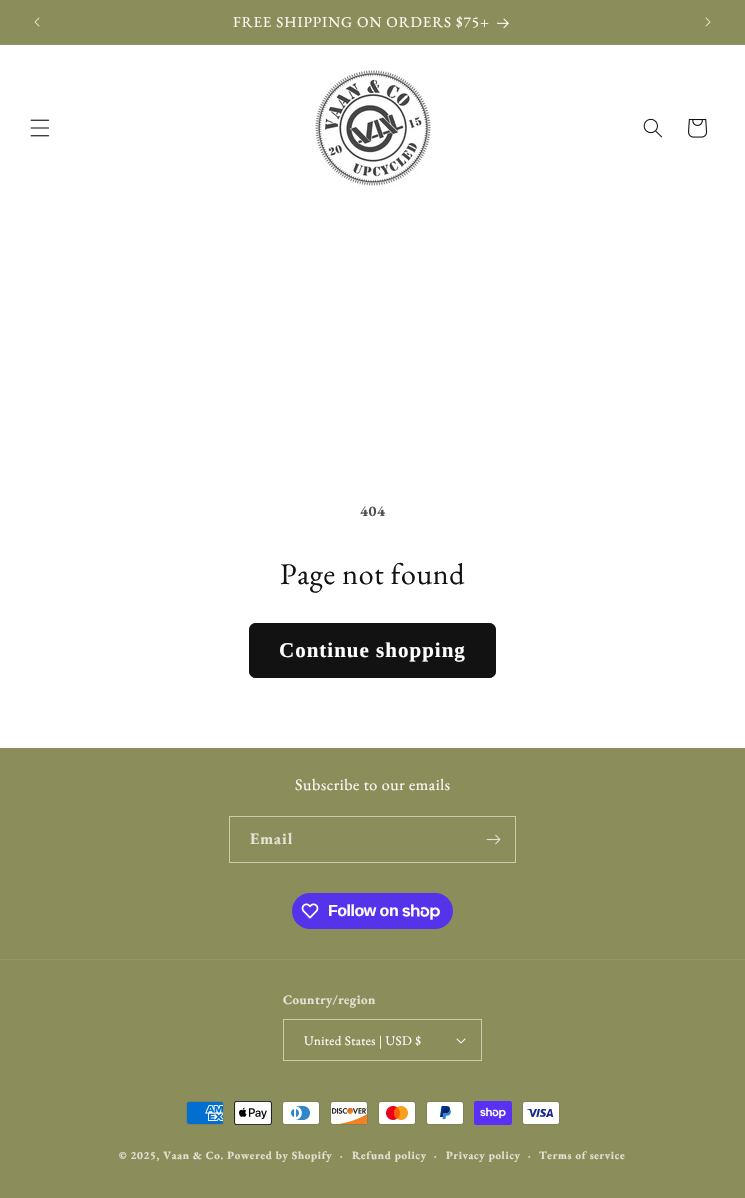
#include "include/core/SkBlurTypes.h"
#include "include/core/SkCanvas.h"
#include "include/core/SkData.h"
#include "include/core/SkFont.h"
#include "include/core/SkFontMgr.h"
#include "include/core/SkImage.h"
#include "include/core/SkMaskFilter.h"
#include "include/core/SkPaint.h"
#include "include/core/SkPathBuilder.h"
#include "include/core/SkTextBlob.h"
#include "include/effects/SkDashPathEffect.h"
#include "include/effects/SkGradientShader.h"
#include "include/utils/SkParsePath.h"

extern sk_sp<SkFontMgr> fontMgr;

void draw(SkCanvas* canvas) {
    SkPaint p;
    p.setAntiAlias(true);
    auto font = [&](const char* family, int weight, float size, bool italic = false) {
        SkFontStyle style(weight, SkFontStyle::kNormal_Width,
            italic ? SkFontStyle::kItalic_Slant : SkFontStyle::kUpright_Slant);
        SkFont result(fontMgr->matchFamilyStyle(family, style), size);
        result.setSubpixel(true);
        return result;
    };
    auto drawTracked = [&](const char* s, float x, float y, const SkFont& font, const SkPaint& ink, float letter, float word) {
        std::vector<SkGlyphID> glyphs(font.countText(s, strlen(s), SkTextEncoding::kUTF8));
        std::vector<float> xs(glyphs.size());
        font.textToGlyphs(s, strlen(s), SkTextEncoding::kUTF8, glyphs);
        font.getXPos(glyphs, xs, x);
        float extra = 0;
        for (size_t i = 0; i < glyphs.size(); i++) {
            xs[i] += extra;
            extra += letter + word * (glyphs[i] == font.unicharToGlyph(' '));
        }
        canvas->drawTextBlob(SkTextBlob::MakeFromPosHGlyphs(glyphs, xs, y, font), 0, 0, ink);
    };
    auto drawPhoto = [&](const char* path, float l, float t, float r, float b) {
        auto image = SkImages::DeferredFromEncodedData(SkData::MakeFromFileName(path));
        canvas->drawImageRect(image, SkRect::MakeLTRB(l, t, r, b), SkSamplingOptions());
    };
    canvas->clear(0xFFFFFFFF);
    p.setColor(0xFF8B8D5B);
    canvas->drawRect(SkRect::MakeLTRB(0, 0, 745, 44), p);
    p.setColor(0xFF949668);
    canvas->drawRect(SkRect::MakeLTRB(0, 44, 745, 45), p);
    drawPhoto("media/1.png", 34, 17, 40, 27);
    auto font1 = font("EB Garamond", 400, 15);
    p.setColor(0xFFFFFEF9);
    drawTracked("FREE SHIPPING ON ORDERS $75+", 233, 27, font1, p, 1, 0);
    drawPhoto("media/2.png", 497, 18, 509, 29);
    drawPhoto("media/3.png", 705, 17, 711, 27);
    drawPhoto("media/4.png", 30, 119, 50, 137);
    drawPhoto("media/5.png", 312, 67, 432, 187);
    drawPhoto("media/6.png", 643, 118, 662, 138);
    drawPhoto("media/7.png", 688, 119, 708, 138);
    auto font2 = font("EB Garamond", 700, 15);
    p.setColor(0xFF4D4D4D);
    drawTracked("404", 360, 516, font2, p, 0.6f, 0);
    auto font3 = font("EB Garamond", 400, 30);
    p.setColor(0xFF121212);
    drawTracked("Page not found", 280, 584, font3, p, 0.6f, 0);
    canvas->drawRoundRect(SkRect::MakeLTRB(249, 623, 496, 678), 7, 7, p);
    p.setStyle(SkPaint::kStroke_Style);
    p.setStrokeWidth(5);
    canvas->drawRoundRect(SkRect::MakeLTRB(251.5f, 625.5f, 493.5f, 675.5f), 4.5f, 4.5f, p);
    auto font4 = font("Liberation Serif", 700, 21);
    p.setStyle(SkPaint::kFill_Style);
    p.setColor(0xFFFFFFFF);
    drawTracked("Continue shopping", 279, 657, font4, p, 1, 0);
    p.setColor(0xFF8B8D5B);
    canvas->drawRect(SkRect::MakeLTRB(0, 748, 745, 1198), p);
    auto font5 = font("EB Garamond", 400, 16);
    p.setColor(0xFFFFFEF9);
    drawTracked("Subscribe to our emails", 295, 790, font5, p, 0.6f, 0);
    p.setStyle(SkPaint::kStroke_Style);
    p.setStrokeWidth(1);
    p.setColor(0xFFCBCBB2);
    canvas->drawRect(SkRect::MakeLTRB(229.5f, 816.5f, 515.5f, 862.5f), p);
    auto font6 = font("EB Garamond", 700, 16);
    p.setStyle(SkPaint::kFill_Style);
    p.setColor(0xFFE2E2D2);
    drawTracked("Email", 250, 844, font6, p, 1, 0);
    drawPhoto("media/8.png", 486, 834, 501, 845);
    p.setColor(0xFF5433EB);
    canvas->drawRoundRect(SkRect::MakeLTRB(292, 893, 453, 929), 18, 18, p);
    drawPhoto("media/9.png", 301, 903, 319, 919);
    auto font7 = font("Liberation Sans", 700, 16);
    p.setColor(0xFFFFFFFF);
    drawTracked("Follow on", 328, 916, font7, p, -0.5f, 0);
    drawPhoto("media/10.png", 402, 904, 440, 920);
    p.setColor(0xFF949668);
    canvas->drawRect(SkRect::MakeLTRB(0, 959, 745, 960), p);
    auto font8 = font("EB Garamond", 700, 13);
    p.setColor(0xFFE2E2D2);
    drawTracked("Country/region", 283, 1004, font8, p, 0.4f, 0);
    drawPhoto("media/11.png", 456, 1038, 466, 1044);
    p.setStyle(SkPaint::kStroke_Style);
    p.setColor(0xFFCBCBB2);
    canvas->drawRect(SkRect::MakeLTRB(283.5f, 1019.5f, 481.5f, 1060.5f), p);
    auto font9 = font("EB Garamond", 400, 13);
    p.setStyle(SkPaint::kFill_Style);
    p.setColor(0xFFFFFEF9);
    drawTracked("United States | USD $", 304, 1045, font9, p, 0.4f, 0);
    drawPhoto("media/12.png", 186, 1101, 224, 1125);
    drawPhoto("media/13.png", 234, 1101, 272, 1125);
    drawPhoto("media/14.png", 282, 1101, 320, 1125);
    drawPhoto("media/15.png", 330, 1101, 368, 1125);
    drawPhoto("media/16.png", 378, 1101, 416, 1125);
    drawPhoto("media/17.png", 426, 1101, 464, 1125);
    drawPhoto("media/18.png", 474, 1101, 512, 1125);
    drawPhoto("media/19.png", 522, 1101, 560, 1125);
    auto font10 = font("EB Garamond", 700, 11);
    p.setColor(0xFFE2E2D2);
    drawTracked("© 2025, Vaan & Co. Powered by Shopify", 119, 1159, font10, p, 0.7f, 0);
    auto font11 = font("EB Garamond", 700, 10);
    drawTracked("·", 340, 1159, font11, p, 0.7f, 0);
    drawTracked("Refund policy", 352, 1159, font10, p, 0.7f, 0);
    drawTracked("·", 434, 1159, font11, p, 0.7f, 0);
    drawTracked("Privacy policy", 446, 1159, font10, p, 0.7f, 0);
    drawTracked("·", 528, 1159, font11, p, 0.7f, 0);
    drawTracked("Terms of service", 539, 1159, font10, p, 0.7f, 0);
}
